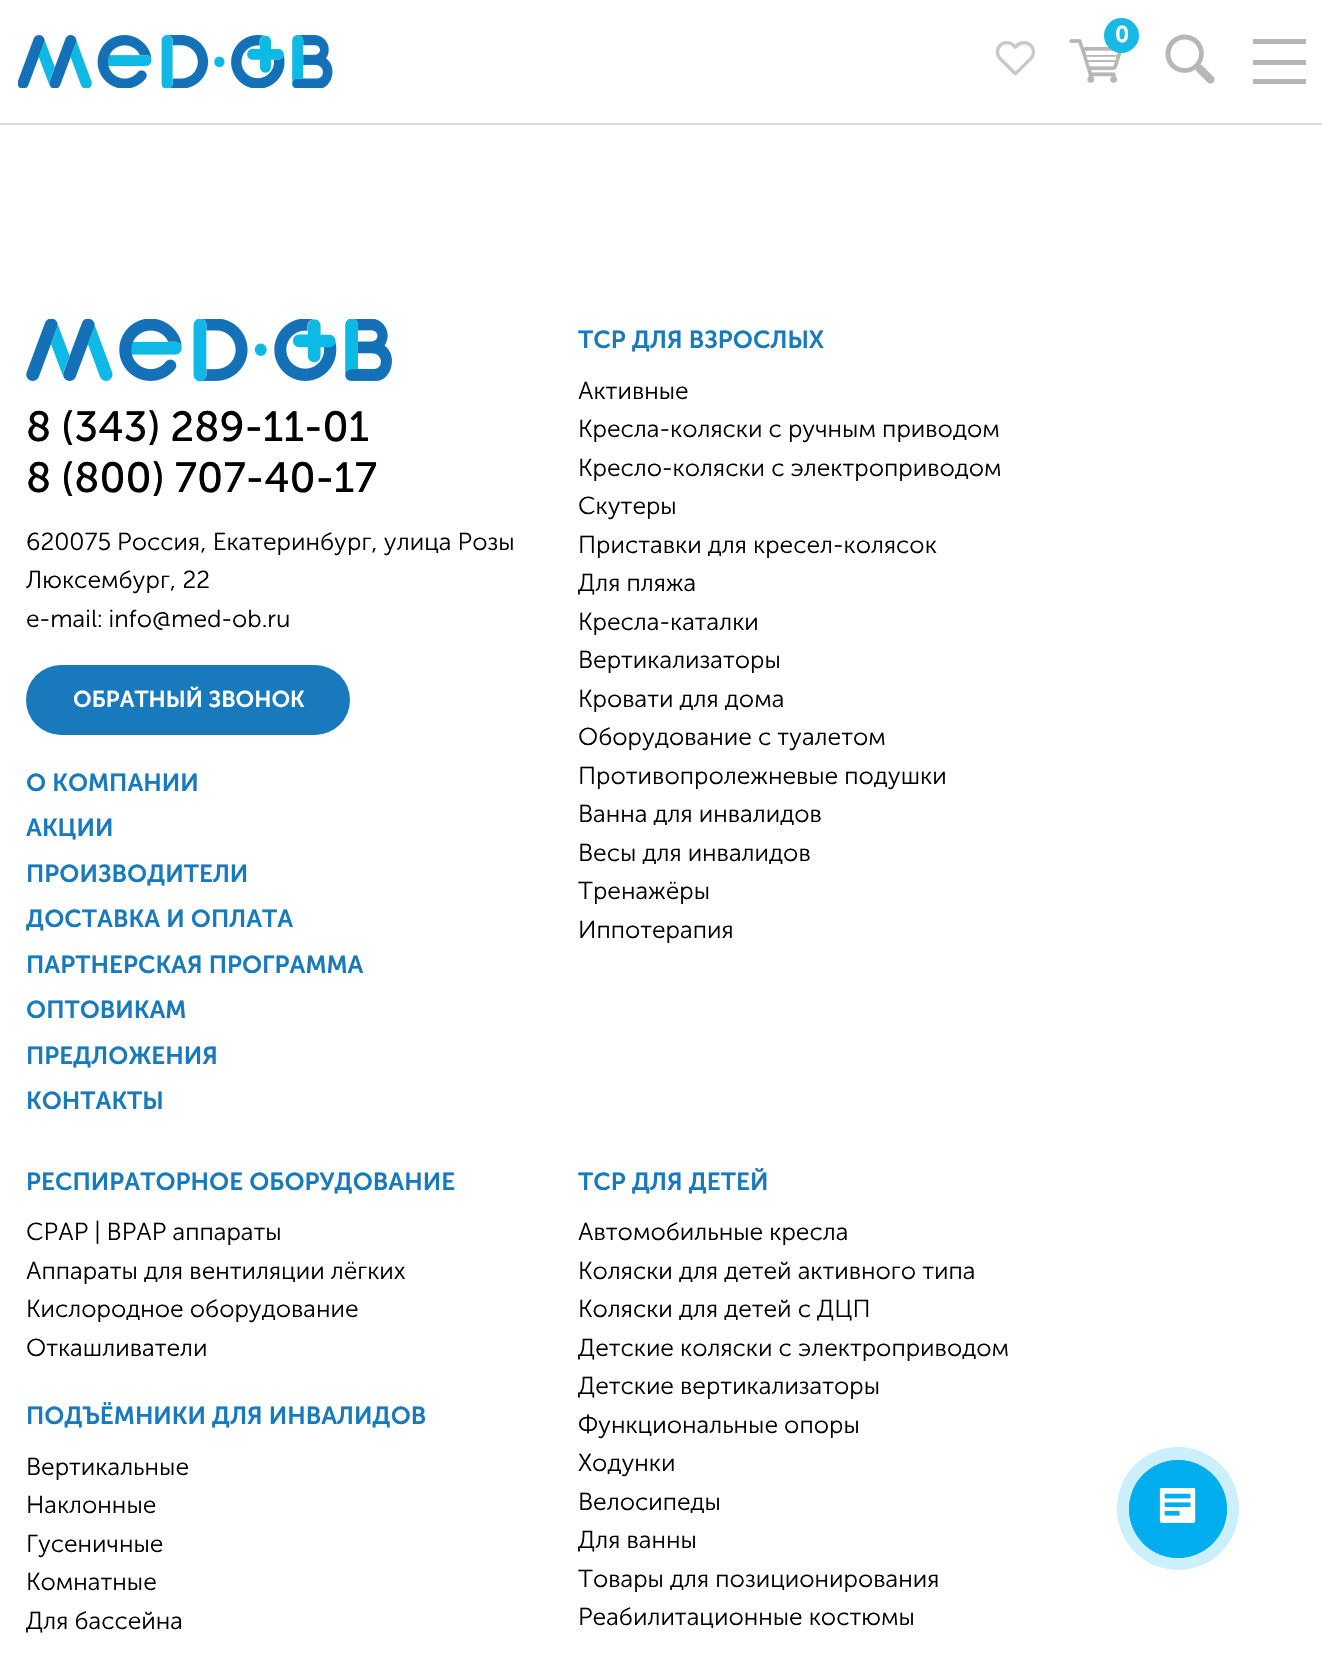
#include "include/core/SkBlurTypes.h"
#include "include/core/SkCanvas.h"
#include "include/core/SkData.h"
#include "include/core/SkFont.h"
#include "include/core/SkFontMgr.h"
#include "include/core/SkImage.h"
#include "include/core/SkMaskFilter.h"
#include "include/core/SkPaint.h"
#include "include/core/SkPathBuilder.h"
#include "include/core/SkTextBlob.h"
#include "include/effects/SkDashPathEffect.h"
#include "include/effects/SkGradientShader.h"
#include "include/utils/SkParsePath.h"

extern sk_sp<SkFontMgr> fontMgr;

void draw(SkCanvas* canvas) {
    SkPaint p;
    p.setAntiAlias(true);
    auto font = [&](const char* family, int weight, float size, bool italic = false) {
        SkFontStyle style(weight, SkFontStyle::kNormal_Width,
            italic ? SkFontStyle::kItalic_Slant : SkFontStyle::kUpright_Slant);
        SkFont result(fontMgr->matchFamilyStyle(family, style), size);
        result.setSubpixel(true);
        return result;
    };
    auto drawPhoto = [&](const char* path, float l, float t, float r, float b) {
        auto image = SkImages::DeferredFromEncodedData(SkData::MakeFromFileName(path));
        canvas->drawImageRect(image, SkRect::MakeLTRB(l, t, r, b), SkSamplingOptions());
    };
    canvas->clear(0xFFFFFFFF);
    p.setColor(0xFFDBDBDB);
    canvas->drawRect(SkRect::MakeLTRB(0, 123, 1322, 125), p);
    drawPhoto("media/1.png", 18, 35, 333, 88);
    drawPhoto("media/2.png", 995, 41, 1035, 76);
    drawPhoto("media/3.png", 1069, 39, 1122, 83);
    p.setColor(0xFF19B9E6);
    canvas->drawCircle(1121.5f, 35.5f, 17.5f, p);
    auto font1 = font("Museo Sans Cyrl", 600, 22.75f);
    p.setColor(0xFFFFFFFF);
    canvas->drawString("0", 1115, 42, font1, p);
    drawPhoto("media/4.png", 1165, 34, 1215, 84);
    {
        const struct { float l, t, r, b; SkColor color; } items[] = {
            {1253, 39, 1306, 44, 0xFFB7B7B7},
            {1253, 79, 1306, 84, 0xFFB7B7B7},
            {1253, 60, 1306, 65, 0xFFB7B7B7},
        };
        for (auto [l, t, r, b, color] : items) {
            p.setColor(color);
            canvas->drawRect(SkRect::MakeLTRB(l, t, r, b), p);
        }
    }
    drawPhoto("media/5.png", 26, 319, 392, 382);
    auto font2 = font("Museo Sans Cyrl", 400, 42);
    p.setColor(0xFF000000);
    canvas->drawString("8 (343) 289-11-01", 26, 441, font2, p);
    canvas->drawString("8 (800) 707-40-17", 26, 492, font2, p);
    auto font3 = font("Museo Sans Cyrl", 300, 24.5f);
    {
        const struct { const char* s; float x, y; } items[] = {
            {"620075 Россия, Екатеринбург, улица Розы", 26, 550},
            {"Люксембург, 22", 26, 588},
            {"e-mail: info@med-ob.ru", 26, 627},
        };
        for (auto [s, x, y] : items) {
            canvas->drawString(s, x, y, font3, p);
        }
    }
    p.setColor(0xFF187ABC);
    canvas->drawRoundRect(SkRect::MakeLTRB(26, 665, 350, 735), 35, 35, p);
    p.setColor(0xFFFFFFFF);
    canvas->drawString("ОБРАТНЫЙ ЗВОНОК", 73, 707, font1, p);
    auto font4 = font("Museo Sans Cyrl", 600, 24.5f);
    p.setColor(0xFF187ABC);
    {
        const struct { const char* s; float x, y; } items[] = {
            {"О КОМПАНИИ", 26, 791},
            {"АКЦИИ", 26, 836},
            {"ПРОИЗВОДИТЕЛИ", 26, 882},
            {"ДОСТАВКА И ОПЛАТА", 26, 927},
            {"ПАРТНЕРСКАЯ ПРОГРАММА", 26, 973},
            {"ОПТОВИКАМ", 26, 1018},
            {"ПРЕДЛОЖЕНИЯ", 26, 1064},
            {"КОНТАКТЫ", 26, 1109},
            {"ТСР ДЛЯ ВЗРОСЛЫХ", 578, 348},
        };
        for (auto [s, x, y] : items) {
            canvas->drawString(s, x, y, font4, p);
        }
    }
    p.setColor(0xFF000000);
    {
        const struct { const char* s; float x, y; } items[] = {
            {"Активные", 578, 399},
            {"Кресла-коляски с ручным приводом", 578, 437},
            {"Кресло-коляски с электроприводом", 578, 476},
            {"Скутеры", 578, 514},
            {"Приставки для кресел-колясок", 578, 553},
            {"Для пляжа", 578, 591},
            {"Кресла-каталки", 578, 630},
            {"Вертикализаторы", 578, 668},
            {"Кровати для дома", 578, 707},
            {"Оборудование с туалетом", 578, 745},
            {"Противопролежневые подушки", 578, 784},
            {"Ванна для инвалидов", 578, 822},
            {"Весы для инвалидов", 578, 861},
            {"Тренажёры", 578, 899},
            {"Иппотерапия", 578, 938},
        };
        for (auto [s, x, y] : items) {
            canvas->drawString(s, x, y, font3, p);
        }
    }
    p.setColor(0xFF187ABC);
    canvas->drawString("РЕСПИРАТОРНОЕ ОБОРУДОВАНИЕ", 26, 1190, font4, p);
    p.setColor(0xFF000000);
    {
        const struct { const char* s; float x, y; } items[] = {
            {"CPAP | BPAP аппараты", 26, 1240},
            {"Аппараты для вентиляции лёгких", 26, 1279},
            {"Кислородное оборудование", 26, 1317},
            {"Откашливатели", 26, 1356},
        };
        for (auto [s, x, y] : items) {
            canvas->drawString(s, x, y, font3, p);
        }
    }
    p.setColor(0xFF187ABC);
    canvas->drawString("ПОДЪЁМНИКИ ДЛЯ ИНВАЛИДОВ", 26, 1424, font4, p);
    p.setColor(0xFF000000);
    {
        const struct { const char* s; float x, y; } items[] = {
            {"Вертикальные", 26, 1475},
            {"Наклонные", 26, 1513},
            {"Гусеничные", 26, 1552},
            {"Комнатные", 26, 1590},
            {"Для бассейна", 26, 1629},
        };
        for (auto [s, x, y] : items) {
            canvas->drawString(s, x, y, font3, p);
        }
    }
    p.setColor(0xFF187ABC);
    canvas->drawString("ТСР ДЛЯ ДЕТЕЙ", 578, 1190, font4, p);
    p.setColor(0xFF000000);
    {
        const struct { const char* s; float x, y; } items[] = {
            {"Автомобильные кресла", 578, 1240},
            {"Коляски для детей активного типа", 578, 1279},
            {"Коляски для детей с ДЦП", 578, 1317},
            {"Детские коляски с электроприводом", 578, 1356},
            {"Детские вертикализаторы", 578, 1394},
            {"Функциональные опоры", 578, 1433},
            {"Ходунки", 578, 1471},
            {"Велосипеды", 578, 1510},
            {"Для ванны", 578, 1548},
            {"Товары для позиционирования", 578, 1587},
            {"Реабилитационные костюмы", 578, 1625},
        };
        for (auto [s, x, y] : items) {
            canvas->drawString(s, x, y, font3, p);
        }
    }
    p.setColor(0xFFCCEFFC);
    canvas->drawRoundRect(SkRect::MakeLTRB(1117, 1447, 1239, 1570), 61, 61, p);
    p.setStyle(SkPaint::kStroke_Style);
    p.setStrokeWidth(1);
    p.setColor(0xFF00AEEF);
    canvas->drawCircle(1178, 1509, 48.5f, p);
    p.setStyle(SkPaint::kFill_Style);
    canvas->drawCircle(1178, 1509, 49, p);
    drawPhoto("media/6.png", 1159, 1488, 1196, 1523);
}
